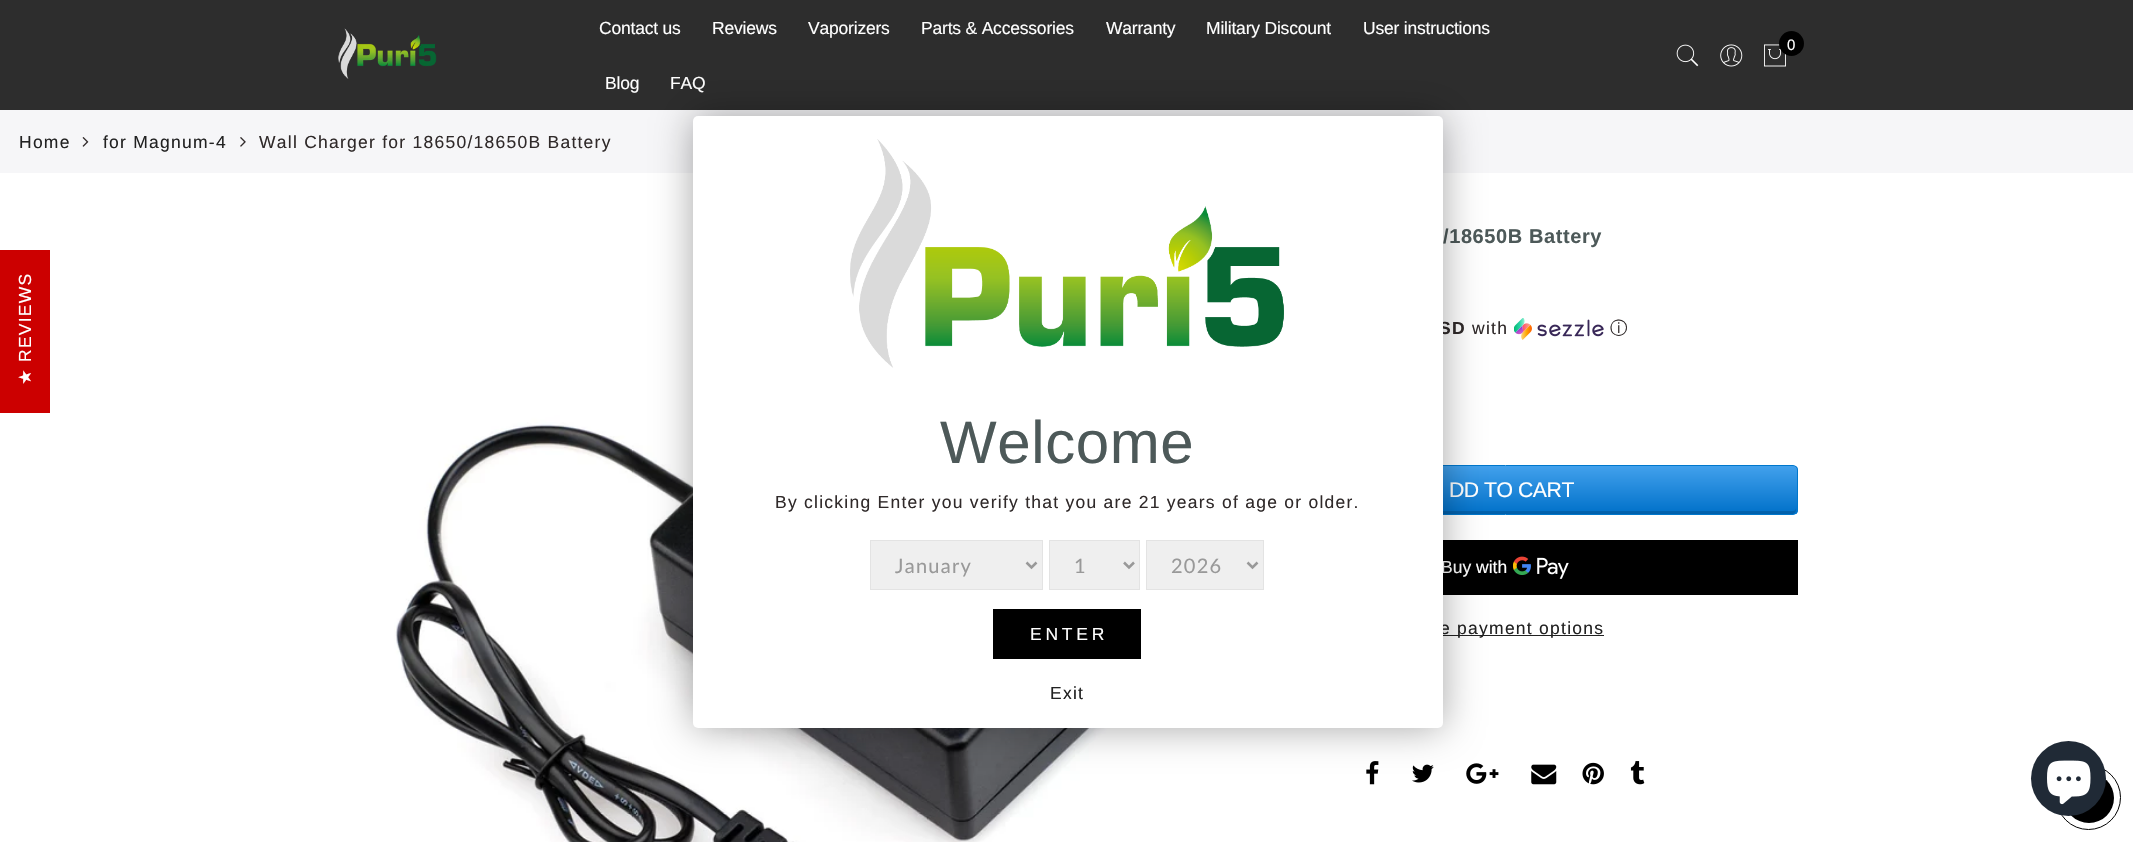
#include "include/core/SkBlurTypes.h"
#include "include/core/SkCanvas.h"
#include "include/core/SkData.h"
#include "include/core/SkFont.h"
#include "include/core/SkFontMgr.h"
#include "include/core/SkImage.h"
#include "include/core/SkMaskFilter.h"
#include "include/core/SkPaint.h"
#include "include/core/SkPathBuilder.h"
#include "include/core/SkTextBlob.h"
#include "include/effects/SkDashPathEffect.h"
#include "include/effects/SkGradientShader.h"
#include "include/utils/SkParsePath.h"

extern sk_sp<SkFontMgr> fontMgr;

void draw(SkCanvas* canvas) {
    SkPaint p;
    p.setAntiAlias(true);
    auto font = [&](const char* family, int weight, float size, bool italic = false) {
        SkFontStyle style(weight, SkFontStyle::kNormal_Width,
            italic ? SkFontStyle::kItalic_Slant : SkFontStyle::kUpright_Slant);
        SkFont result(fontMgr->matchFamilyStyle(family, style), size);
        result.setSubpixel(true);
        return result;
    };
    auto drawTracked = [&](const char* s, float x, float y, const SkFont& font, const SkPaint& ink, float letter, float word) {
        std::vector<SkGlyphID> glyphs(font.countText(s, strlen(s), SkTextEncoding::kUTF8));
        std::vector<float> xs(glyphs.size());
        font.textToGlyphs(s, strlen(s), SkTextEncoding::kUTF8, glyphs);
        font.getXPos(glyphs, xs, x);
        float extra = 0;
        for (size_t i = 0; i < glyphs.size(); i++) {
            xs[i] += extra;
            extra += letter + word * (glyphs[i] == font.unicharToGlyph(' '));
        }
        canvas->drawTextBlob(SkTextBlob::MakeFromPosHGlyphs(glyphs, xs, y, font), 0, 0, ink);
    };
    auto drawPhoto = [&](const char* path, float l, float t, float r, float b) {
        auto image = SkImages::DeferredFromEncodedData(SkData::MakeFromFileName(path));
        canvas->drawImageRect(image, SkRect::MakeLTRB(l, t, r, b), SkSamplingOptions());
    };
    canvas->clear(0xFFFFFFFF);
    p.setColor(0xFF2D2D2D);
    canvas->drawRect(SkRect::MakeLTRB(0, 0, 2133, 110), p);
    drawPhoto("media/1.png", 338, 28, 437, 79);
    auto font1 = font("Liberation Sans", 400, 17.5f);
    p.setColor(0xFFFFFFFF);
    {
        const struct { const char* s; float x, y; } items[] = {
            {"Contact us", 599, 34},
            {"Reviews", 712, 34},
            {"Vaporizers", 808, 34},
            {"Parts & Accessories", 921, 34},
            {"Warranty", 1106, 34},
            {"Military Discount", 1206, 34},
            {"User instructions", 1363, 34},
            {"Blog", 605, 89},
            {"FAQ", 670, 89},
        };
        for (auto [s, x, y] : items) {
            drawTracked(s, x, y, font1, p, -0.2f, 0);
        }
    }
    drawPhoto("media/2.png", 1676, 44, 1699, 67);
    drawPhoto("media/3.png", 1720, 44, 1743, 67);
    drawPhoto("media/4.png", 1764, 44, 1786, 67);
    p.setColor(0xFF000000);
    canvas->drawCircle(1791.5f, 43.5f, 12.5f, p);
    auto font2 = font("Liberation Sans", 400, 15);
    p.setColor(0xFFFFFFFF);
    drawTracked("0", 1787, 50, font2, p, 1.25f, 0);
    p.setColor(0xFFF6F6F8);
    canvas->drawRect(SkRect::MakeLTRB(0, 110, 2133, 173), p);
    p.setColor(0xFF222222);
    drawTracked("Home", 19, 148, font1, p, 1.25f, 0);
    drawPhoto("media/5.png", 82, 137, 89, 147);
    drawTracked("for Magnum-4", 103, 148, font1, p, 1.25f, 0);
    drawPhoto("media/6.png", 240, 137, 246, 147);
    p.setColor(0xFF302A2A);
    drawTracked("Wall Charger for 18650/18650B Battery", 259, 148, font1, p, 1.25f, 0);
    drawPhoto("media/7.png", 394, 399, 1126, 842);
    auto font3 = font("Liberation Sans", 700, 20);
    p.setColor(0xFF4D5959);
    drawTracked("/18650B Battery", 1443, 243, font3, p, 0.6f, 0);
    auto font4 = font("Liberation Sans", 700, 17.5f);
    p.setColor(0xFF302A2A);
    drawTracked("SD", 1439, 334, font4, p, 1.25f, 0);
    drawTracked("with", 1472, 334, font1, p, 1.25f, 0);
    drawPhoto("media/8.png", 1514, 318, 1604, 340);
    auto font5 = font("WenQuanYi Zen Hei", 500, 17.5f);
    drawTracked("ⓘ", 1610, 334, font5, p, 1.25f, 0);
    canvas->save();
    canvas->clipPath(SkPathBuilder().moveTo(1218, 465).lineTo(1793, 465).cubicTo(1796, 465, 1798, 467, 1798, 470).lineTo(1798, 510).cubicTo(1798, 513, 1796, 515, 1793, 515).lineTo(1218, 515).cubicTo(1215, 515, 1213, 513, 1213, 510).lineTo(1213, 470).cubicTo(1213, 467, 1215, 465, 1218, 465).close().detach(), true);
    {
        const SkColor colors[] = {0xFF42A1EC, 0xFF0070C9};
        const float stops[] = {0, 1};
        const SkPoint ends[] = {{1505, 466}, {1505, 514}};
        p.setShader(SkGradientShader::MakeLinear(ends, colors, stops, 2, SkTileMode::kClamp));
        p.setAlpha(255);
    }
    canvas->drawRect(SkRect::MakeLTRB(1443, 466, 1798, 514), p);
    canvas->restore();
    p.setShader(nullptr);
    p.setColor(0x26000000);
    canvas->drawPath(SkPathBuilder().moveTo(1214, 508).lineTo(1214, 510).cubicTo(1214, 512, 1216, 514, 1218, 514).lineTo(1792, 514).cubicTo(1794, 514, 1796, 512, 1796, 510).lineTo(1796, 508).cubicTo(1796, 510, 1795, 511, 1792, 511).lineTo(1218, 511).cubicTo(1215, 511, 1214, 510, 1214, 508).close().detach(), p);
    p.setStyle(SkPaint::kStroke_Style);
    p.setStrokeWidth(1);
    p.setColor(0xFF0077CC);
    canvas->drawRoundRect(SkRect::MakeLTRB(1213.5f, 465.5f, 1797.5f, 514.5f), 4.5f, 4.5f, p);
    auto font6 = font("Liberation Sans", 400, 21.25f);
    p.setStyle(SkPaint::kFill_Style);
    p.setColor(0xFFFFFFFF);
    drawTracked("DD TO CART", 1449, 497, font6, p, -0.5f, 0);
    p.setColor(0xFF000000);
    canvas->drawRect(SkRect::MakeLTRB(1443, 540, 1798, 595), p);
    p.setColor(0xFFFFFFFF);
    canvas->drawString("Buy with", 1441, 573, font1, p);
    drawPhoto("media/9.png", 1513, 556, 1569, 579);
    p.setColor(0xFF222222);
    canvas->drawRect(SkRect::MakeLTRB(1443, 635, 1604, 636), p);
    drawTracked("e payment options", 1440, 634, font1, p, 1.25f, 0);
    drawPhoto("media/10.png", 1366, 761, 1379, 785);
    drawPhoto("media/11.png", 1412, 764, 1434, 783);
    drawPhoto("media/12.png", 1466, 763, 1499, 784);
    drawPhoto("media/13.png", 1531, 764, 1557, 785);
    drawPhoto("media/14.png", 1582, 762, 1604, 785);
    drawPhoto("media/15.png", 1630, 761, 1645, 785);
    p.setColor(0xFFCC0000);
    canvas->drawRect(SkRect::MakeLTRB(0, 250, 50, 413), p);
    p.setColor(0xFFFFFFFF);
    canvas->save();
    canvas->rotate(-90, 31, 362);
    drawTracked("REVIEWS", 31, 362, font1, p, 1.25f, 0);
    canvas->restore();
    auto font7 = font("DejaVu Sans", 400, 17.5f);
    canvas->save();
    canvas->rotate(-90, 31, 385);
    drawTracked("★", 31, 385, font7, p, 1.25f, 0);
    canvas->restore();
    p.setColor(0x59000000);
    p.setMaskFilter(SkMaskFilter::MakeBlur(kNormal_SkBlurStyle, 19));
    canvas->drawRoundRect(SkRect::MakeLTRB(693, 116, 1443, 728), 5, 5, p);
    p.setMaskFilter(nullptr);
    p.setColor(0xFFFFFFFF);
    canvas->drawRoundRect(SkRect::MakeLTRB(693, 116, 1443, 728), 5, 5, p);
    drawPhoto("media/16.png", 850, 139, 1284, 368);
    auto font8 = font("Liberation Sans", 400, 60);
    p.setColor(0xFF4D5959);
    drawTracked("Welcome", 940, 463, font8, p, 0.6f, 0);
    p.setColor(0xFF302A2A);
    drawTracked("By clicking Enter you verify that you are 21 years of age or older.", 775, 508, font1, p, 1.25f, 0);
    p.setColor(0xFFEFEFEF);
    canvas->drawRect(SkRect::MakeLTRB(870.5f, 540.5f, 1042.5f, 589.5f), p);
    p.setStyle(SkPaint::kStroke_Style);
    p.setColor(0xFFE3E3E3);
    canvas->drawRect(SkRect::MakeLTRB(870.5f, 540.5f, 1042.5f, 589.5f), p);
    p.setStrokeWidth(2.5f);
    p.setColor(0xFF999999);
    canvas->drawPath(SkPathBuilder().moveTo(1026.5f, 562.5f).lineTo(1031.5f, 567.5f).lineTo(1036.5f, 562.5f).detach(), p);
    auto font9 = font("Lato", 400, 20);
    p.setStyle(SkPaint::kFill_Style);
    drawTracked("January", 895, 573, font9, p, 1.25f, 0);
    p.setColor(0xFFEFEFEF);
    canvas->drawRect(SkRect::MakeLTRB(1049.5f, 540.5f, 1139.5f, 589.5f), p);
    p.setStyle(SkPaint::kStroke_Style);
    p.setStrokeWidth(1);
    p.setColor(0xFFE3E3E3);
    canvas->drawRect(SkRect::MakeLTRB(1049.5f, 540.5f, 1139.5f, 589.5f), p);
    p.setStrokeWidth(2.5f);
    p.setColor(0xFF999999);
    canvas->drawPath(SkPathBuilder().moveTo(1124, 562.5f).lineTo(1129, 567.5f).lineTo(1134, 562.5f).detach(), p);
    p.setStyle(SkPaint::kFill_Style);
    drawTracked("1", 1074, 573, font9, p, 1.25f, 0);
    p.setColor(0xFFEFEFEF);
    canvas->drawRect(SkRect::MakeLTRB(1146.5f, 540.5f, 1263.5f, 589.5f), p);
    p.setStyle(SkPaint::kStroke_Style);
    p.setStrokeWidth(1);
    p.setColor(0xFFE3E3E3);
    canvas->drawRect(SkRect::MakeLTRB(1146.5f, 540.5f, 1263.5f, 589.5f), p);
    p.setStrokeWidth(2.5f);
    p.setColor(0xFF999999);
    canvas->drawPath(SkPathBuilder().moveTo(1247.5f, 562.5f).lineTo(1252.5f, 567.5f).lineTo(1257.5f, 562.5f).detach(), p);
    p.setStyle(SkPaint::kFill_Style);
    drawTracked("2026", 1171, 573, font9, p, 1.25f, 0);
    p.setColor(0xFF000000);
    canvas->drawRect(SkRect::MakeLTRB(993, 609, 1141, 659), p);
    p.setColor(0xFFFFFFFF);
    drawTracked("ENTER", 1030, 640, font1, p, 3.75f, 0);
    p.setColor(0xFF222222);
    drawTracked("Exit", 1050, 699, font1, p, 1.25f, 0);
    p.setStyle(SkPaint::kStroke_Style);
    p.setStrokeWidth(1);
    p.setColor(0xFF000000);
    canvas->drawCircle(2088.5f, 797.5f, 32, p);
    p.setStyle(SkPaint::kFill_Style);
    canvas->drawCircle(2089, 798, 25, p);
    drawPhoto("media/18.png", 2097, 801, 2098, 802);
    p.setColor(0xFF202A36);
    canvas->drawCircle(2068.5f, 778.5f, 37.5f, p);
    drawPhoto("media/17.png", 2047, 760, 2091, 805);
}
